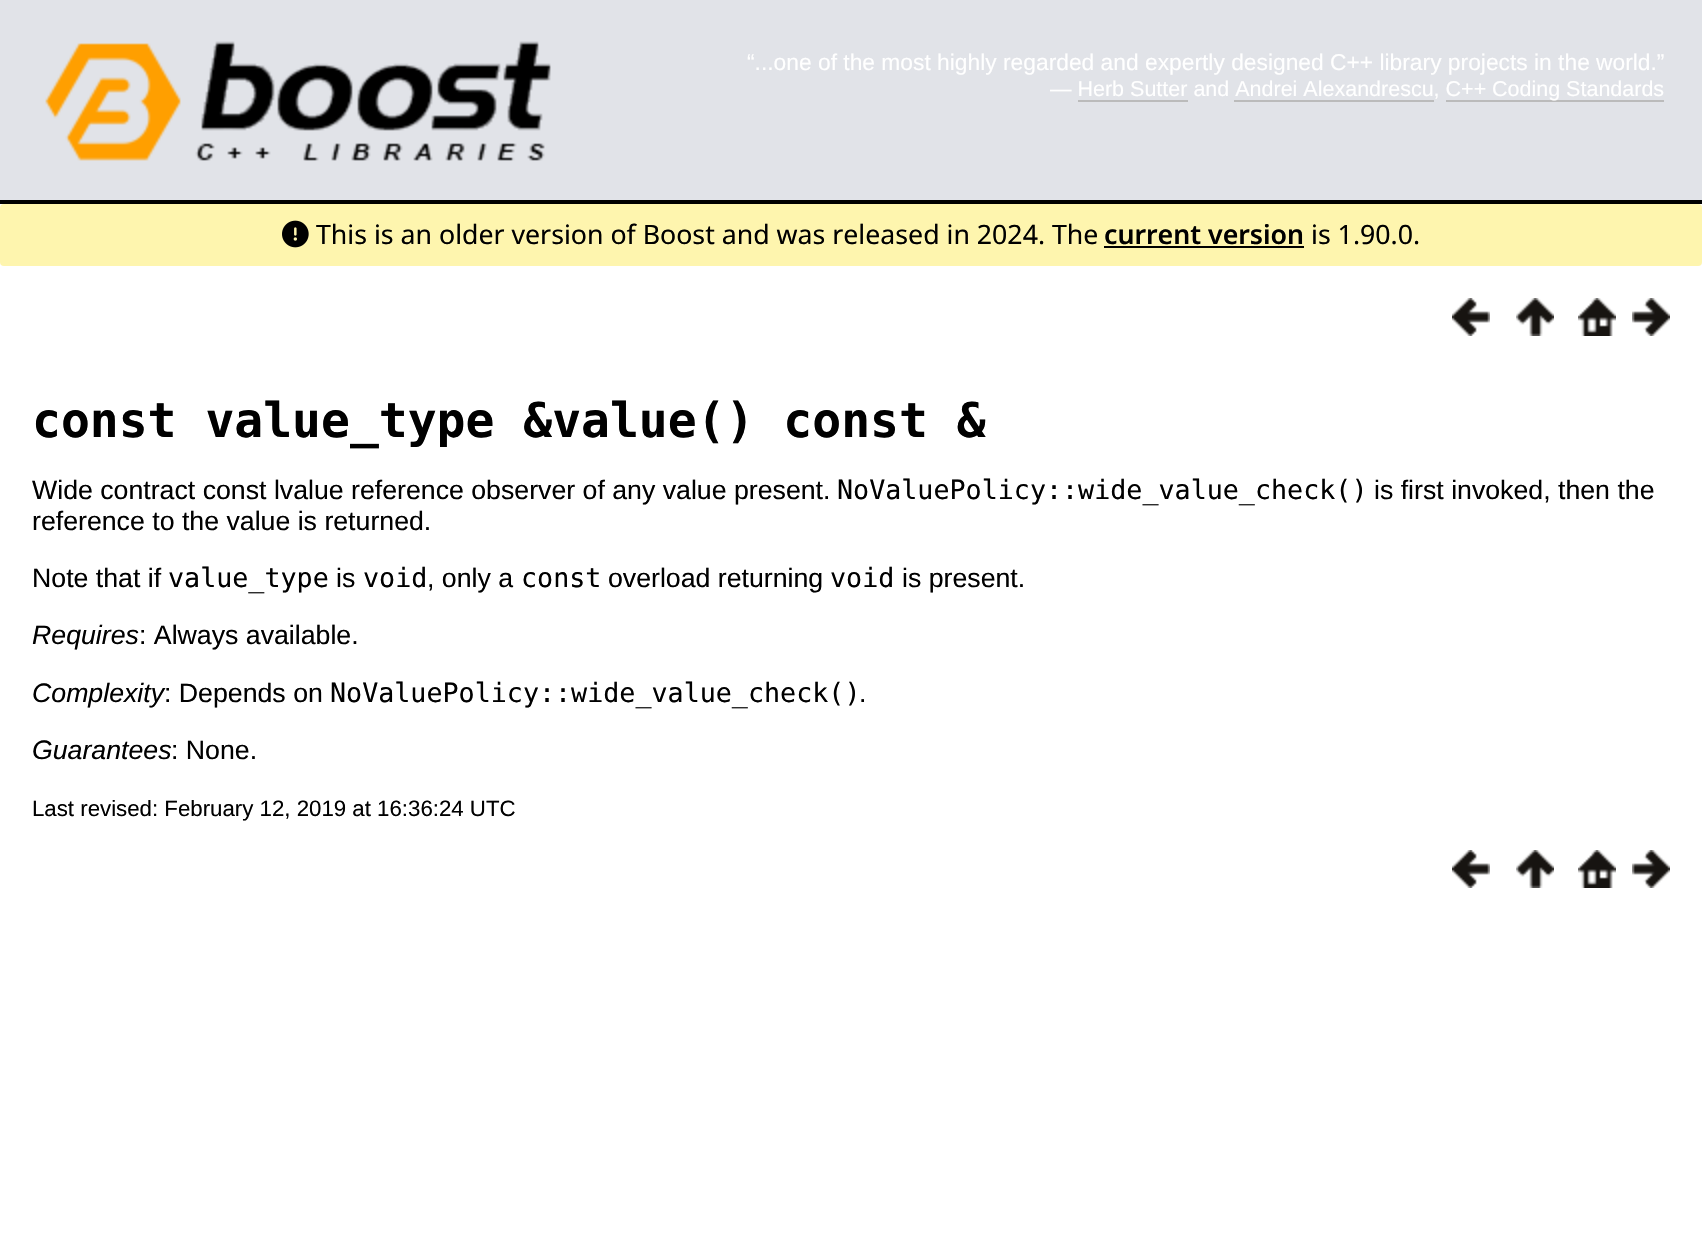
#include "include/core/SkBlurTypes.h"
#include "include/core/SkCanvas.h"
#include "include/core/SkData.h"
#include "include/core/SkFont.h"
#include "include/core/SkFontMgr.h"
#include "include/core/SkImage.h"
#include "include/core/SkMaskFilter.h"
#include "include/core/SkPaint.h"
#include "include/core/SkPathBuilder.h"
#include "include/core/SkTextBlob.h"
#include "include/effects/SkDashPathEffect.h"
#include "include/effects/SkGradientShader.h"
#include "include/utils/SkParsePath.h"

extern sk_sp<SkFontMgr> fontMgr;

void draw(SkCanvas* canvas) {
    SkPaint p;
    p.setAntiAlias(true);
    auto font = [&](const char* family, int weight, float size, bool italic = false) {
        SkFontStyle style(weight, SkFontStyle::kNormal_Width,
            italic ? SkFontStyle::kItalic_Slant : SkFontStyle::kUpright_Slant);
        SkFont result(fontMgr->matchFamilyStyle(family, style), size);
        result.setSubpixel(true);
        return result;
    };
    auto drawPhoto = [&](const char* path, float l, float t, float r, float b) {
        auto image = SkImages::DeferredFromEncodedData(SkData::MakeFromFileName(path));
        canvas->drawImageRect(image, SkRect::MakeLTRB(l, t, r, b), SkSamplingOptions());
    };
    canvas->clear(0xFFFFFFFF);
    p.setColor(0xFFE1E3E8);
    canvas->drawRect(SkRect::MakeLTRB(0, 0, 1702, 200), p);
    p.setColor(0xFF000000);
    canvas->drawRect(SkRect::MakeLTRB(0, 200, 1702, 204), p);
    drawPhoto("media/1.png", 45, 41, 551, 161);
    auto font1 = font("Liberation Sans", 400, 22.8f);
    p.setColor(0xFFFFFFFF);
    canvas->drawString("“...one of the most highly regarded and expertly designed C++ library projects in the", 747, 70, font1, p);
    canvas->drawString("world.”", 1596, 70, font1, p);
    auto font2 = font("Liberation Sans", 400, 21.5f);
    canvas->drawString("— Herb Sutter and Andrei Alexandrescu, C++", 1050, 96, font2, p);
    p.setColor(0xFFBBBBBB);
    canvas->drawRect(SkRect::MakeLTRB(1446, 100, 1664, 102), p);
    p.setColor(0xFFFFFFFF);
    canvas->drawString("Coding Standards", 1492, 96, font2, p);
    p.setColor(0xFFBBBBBB);
    canvas->drawRect(SkRect::MakeLTRB(1078, 100, 1188, 102), p);
    canvas->drawRect(SkRect::MakeLTRB(1234, 100, 1434, 102), p);
    p.setColor(0xFFFEF5AE);
    canvas->drawRoundRect(SkRect::MakeLTRB(0, 204, 1702, 266), 4, 4, p);
    drawPhoto("media/2.png", 282, 220, 309, 248);
    auto font3 = font("Noto Sans", 400, 26.7f);
    p.setColor(0xFF000000);
    canvas->drawString("This is an older version of Boost and was released in 2024. The", 316, 244, font3, p);
    auto font4 = font("Noto Sans", 600, 26.7f);
    canvas->drawString("current version", 1104, 244, font4, p);
    canvas->drawRect(SkRect::MakeLTRB(1104, 246, 1304, 248), p);
    canvas->drawString("is 1.90.0.", 1311, 244, font3, p);
    drawPhoto("media/3.png", 1452, 298, 1490, 336);
    drawPhoto("media/4.png", 1516, 298, 1554, 336);
    drawPhoto("media/5.png", 1578, 298, 1616, 336);
    drawPhoto("media/6.png", 1632, 298, 1670, 336);
    auto font5 = font("DejaVu Sans Mono", 700, 48);
    canvas->drawString("const value_type &value() const &", 32, 437, font5, p);
    auto font6 = font("Liberation Sans", 400, 26.7f);
    canvas->drawString("Wide contract const lvalue reference observer of any value present.", 32, 499, font6, p);
    auto font7 = font("DejaVu Sans Mono", 400, 26.7f);
    canvas->drawString("NoValuePolicy::wide_value_check()", 837, 499, font7, p);
    {
        const struct { const char* s; float x, y; } items[] = {
            {"is first invoked, then the", 1374, 499},
            {"reference to the value is returned.", 32, 530},
            {"Note that if", 32, 587},
        };
        for (auto [s, x, y] : items) {
            canvas->drawString(s, x, y, font6, p);
        }
    }
    canvas->drawString("value_type", 168, 587, font7, p);
    canvas->drawString("is", 336, 587, font6, p);
    canvas->drawString("void", 363, 587, font7, p);
    canvas->drawString(", only a", 427, 587, font6, p);
    canvas->drawString("const", 521, 587, font7, p);
    canvas->drawString("overload returning", 608, 587, font6, p);
    canvas->drawString("void", 830, 587, font7, p);
    canvas->drawString("is present.", 902, 587, font6, p);
    auto font8 = font("Liberation Sans", 400, 26.7f, true);
    canvas->drawString("Requires", 32, 644, font8, p);
    canvas->drawString(": Always available.", 139, 644, font6, p);
    canvas->drawString("Complexity", 32, 702, font8, p);
    canvas->drawString(": Depends on", 164, 702, font6, p);
    canvas->drawString("NoValuePolicy::wide_value_check()", 330, 702, font7, p);
    canvas->drawString(".", 859, 702, font6, p);
    canvas->drawString("Guarantees", 32, 759, font8, p);
    canvas->drawString(": None.", 171, 759, font6, p);
    auto font9 = font("Liberation Sans", 400, 22.25f);
    canvas->drawString("Last revised: February 12, 2019 at 16:36:24 UTC", 32, 816, font9, p);
    drawPhoto("media/3.png", 1452, 850, 1490, 888);
    drawPhoto("media/4.png", 1516, 850, 1554, 888);
    drawPhoto("media/5.png", 1578, 850, 1616, 888);
    drawPhoto("media/6.png", 1632, 850, 1670, 888);
}
